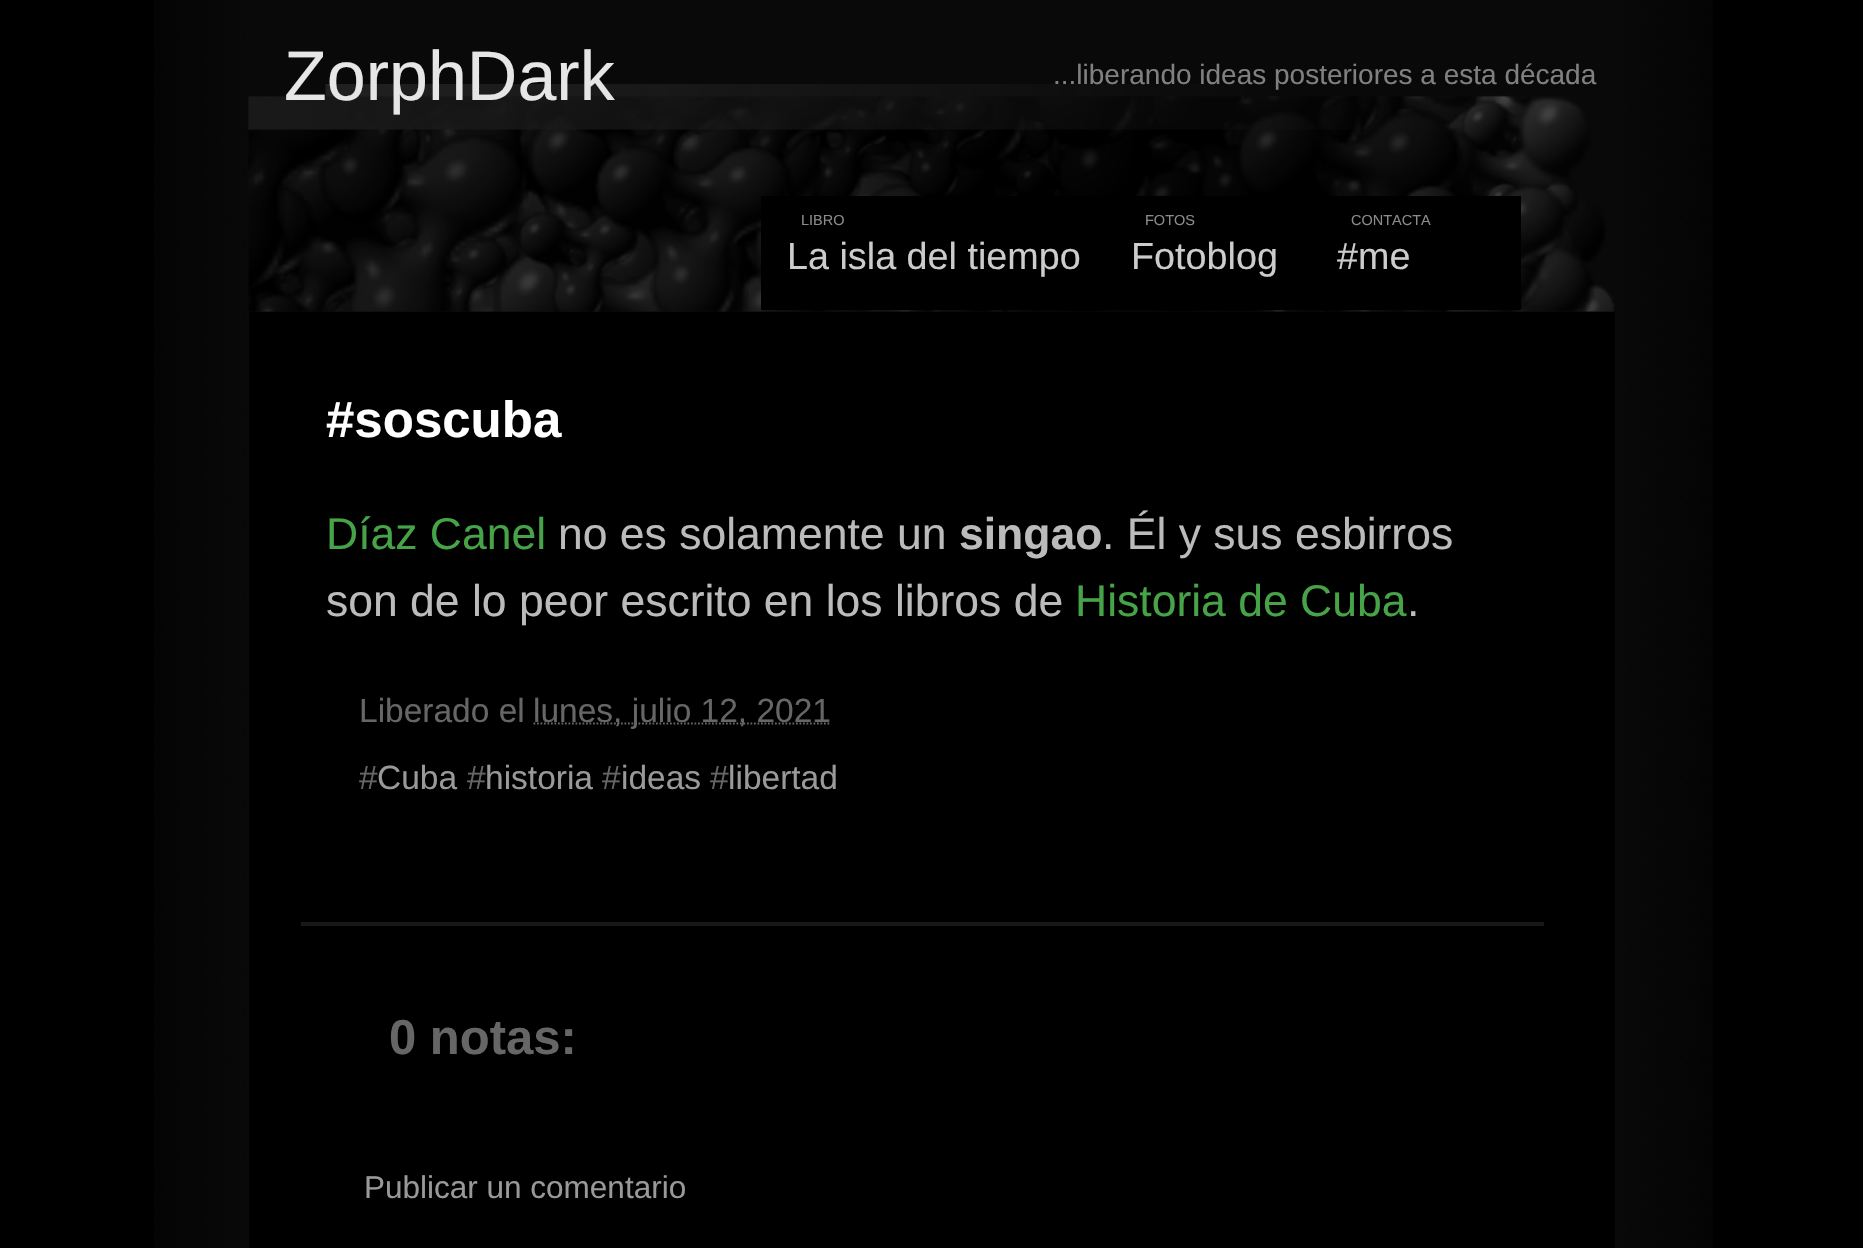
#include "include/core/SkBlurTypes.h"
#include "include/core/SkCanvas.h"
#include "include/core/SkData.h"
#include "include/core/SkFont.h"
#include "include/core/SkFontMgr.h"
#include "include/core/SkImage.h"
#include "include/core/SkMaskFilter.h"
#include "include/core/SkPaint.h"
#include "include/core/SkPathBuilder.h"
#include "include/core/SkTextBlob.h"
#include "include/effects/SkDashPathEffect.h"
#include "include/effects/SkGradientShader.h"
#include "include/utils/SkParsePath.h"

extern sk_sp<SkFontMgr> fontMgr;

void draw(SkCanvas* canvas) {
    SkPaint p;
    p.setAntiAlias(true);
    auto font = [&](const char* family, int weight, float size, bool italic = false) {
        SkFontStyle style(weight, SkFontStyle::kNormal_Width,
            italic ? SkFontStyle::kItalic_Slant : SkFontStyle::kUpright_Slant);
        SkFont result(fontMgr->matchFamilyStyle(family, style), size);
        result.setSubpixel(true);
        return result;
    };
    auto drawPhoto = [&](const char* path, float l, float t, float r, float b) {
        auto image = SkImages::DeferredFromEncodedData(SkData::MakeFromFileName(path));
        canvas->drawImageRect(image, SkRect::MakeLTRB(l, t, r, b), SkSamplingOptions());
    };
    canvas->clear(0xFF000000);
    drawPhoto("media/1.png", 154, 0, 1713, 1248);
    p.setColor(0xFF000000);
    canvas->drawRect(SkRect::MakeLTRB(249, 312, 1615, 1248), p);
    drawPhoto("media/2.png", 248, 84, 1615, 312);
    auto font1 = font("Liberation Sans", 400, 70);
    p.setColor(0xFFE6E6E6);
    canvas->drawString("ZorphDark", 284, 100, font1, p);
    auto font2 = font("Liberation Sans", 400, 28);
    p.setColor(0xFF808080);
    canvas->drawString("...liberando ideas posteriores a esta década", 1053, 84, font2, p);
    p.setColor(0xFF000000);
    canvas->drawRect(SkRect::MakeLTRB(761, 196, 1521, 310), p);
    auto font3 = font("Liberation Sans", 400, 14.5f);
    p.setColor(0xFF8B8B8B);
    canvas->drawString("LIBRO", 801, 225, font3, p);
    auto font4 = font("Liberation Sans", 400, 37.75f);
    p.setColor(0xFFCCCCCC);
    canvas->drawString("La isla del tiempo", 787, 269, font4, p);
    p.setColor(0xFF8B8B8B);
    canvas->drawString("FOTOS", 1145, 225, font3, p);
    p.setColor(0xFFCCCCCC);
    canvas->drawString("Fotoblog", 1131, 269, font4, p);
    p.setColor(0xFF8B8B8B);
    canvas->drawString("CONTACTA", 1351, 225, font3, p);
    p.setColor(0xFFCCCCCC);
    canvas->drawString("#me", 1337, 269, font4, p);
    p.setColor(0xFF181818);
    canvas->drawRect(SkRect::MakeLTRB(301, 922, 1544, 926), p);
    auto font5 = font("Liberation Sans", 700, 51);
    p.setColor(0xFFFFFFFF);
    canvas->drawString("#soscuba", 326, 437, font5, p);
    auto font6 = font("Liberation Sans", 400, 44.5f);
    p.setColor(0xFF47A347);
    canvas->drawString("Díaz Canel", 326, 549, font6, p);
    p.setColor(0xFFBBBBBB);
    canvas->drawString("no es solamente un", 558, 549, font6, p);
    auto font7 = font("Liberation Sans", 700, 44.5f);
    canvas->drawString("singao", 959, 549, font7, p);
    canvas->drawString(". Él y sus esbirros", 1102, 549, font6, p);
    canvas->drawString("son de lo peor escrito en los libros de", 326, 616, font6, p);
    p.setColor(0xFF47A347);
    canvas->drawString("Historia de Cuba", 1075, 616, font6, p);
    p.setColor(0xFFBBBBBB);
    canvas->drawString(".", 1407, 616, font6, p);
    auto font8 = font("Liberation Sans", 400, 33.5f);
    p.setColor(0xFF666666);
    canvas->drawString("Liberado el", 359, 722, font8, p);
    p.setStyle(SkPaint::kStroke_Style);
    p.setStrokeWidth(1.8f);
    p.setPathEffect(SkDashPathEffect::Make({{1.75f, 1.75f}}, 0));
    canvas->drawPath(SkPathBuilder().moveTo(533.5f, 723.5f).lineTo(830.5f, 723.5f).detach(), p);
    p.setPathEffect(nullptr);
    p.setStyle(SkPaint::kFill_Style);
    canvas->drawString("lunes, julio 12, 2021", 533, 722, font8, p);
    canvas->drawString("#", 359, 789, font8, p);
    p.setColor(0xFF999999);
    canvas->drawString("Cuba", 377, 789, font8, p);
    p.setColor(0xFF666666);
    canvas->drawString("#", 467, 789, font8, p);
    p.setColor(0xFF999999);
    canvas->drawString("historia", 485, 789, font8, p);
    p.setColor(0xFF666666);
    canvas->drawString("#", 602, 789, font8, p);
    p.setColor(0xFF999999);
    canvas->drawString("ideas", 621, 789, font8, p);
    p.setColor(0xFF666666);
    canvas->drawString("#", 710, 789, font8, p);
    p.setColor(0xFF999999);
    canvas->drawString("libertad", 728, 789, font8, p);
    auto font9 = font("Liberation Sans", 700, 49);
    p.setColor(0xFF666666);
    canvas->drawString("0 notas:", 389, 1054, font9, p);
    auto font10 = font("Liberation Sans", 400, 31.5f);
    p.setColor(0xFF999999);
    canvas->drawString("Publicar un comentario", 364, 1198, font10, p);
}
